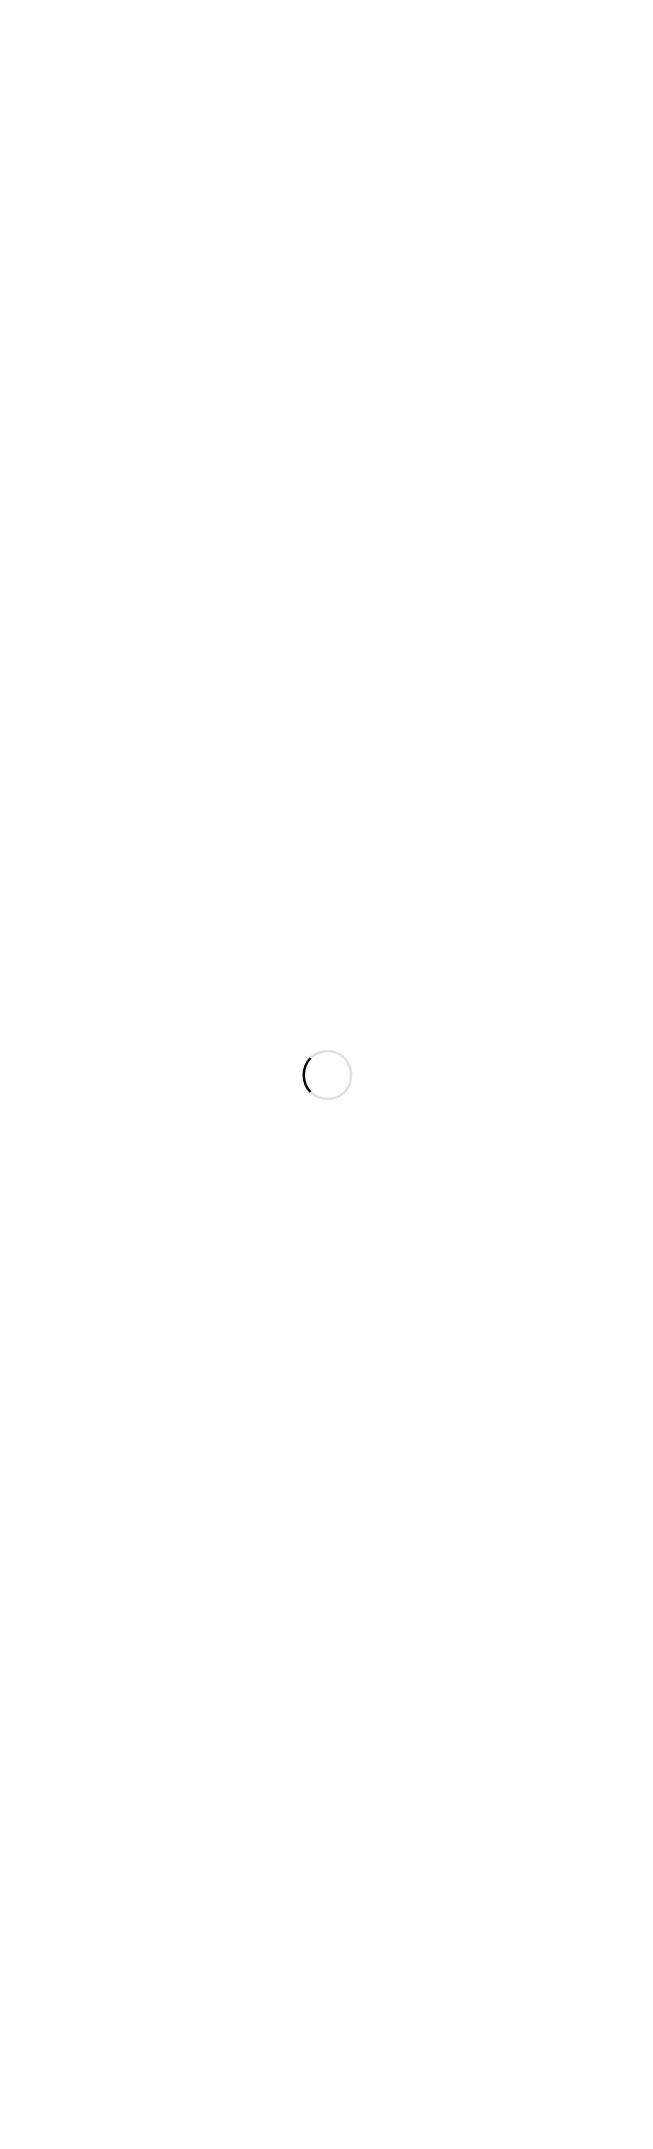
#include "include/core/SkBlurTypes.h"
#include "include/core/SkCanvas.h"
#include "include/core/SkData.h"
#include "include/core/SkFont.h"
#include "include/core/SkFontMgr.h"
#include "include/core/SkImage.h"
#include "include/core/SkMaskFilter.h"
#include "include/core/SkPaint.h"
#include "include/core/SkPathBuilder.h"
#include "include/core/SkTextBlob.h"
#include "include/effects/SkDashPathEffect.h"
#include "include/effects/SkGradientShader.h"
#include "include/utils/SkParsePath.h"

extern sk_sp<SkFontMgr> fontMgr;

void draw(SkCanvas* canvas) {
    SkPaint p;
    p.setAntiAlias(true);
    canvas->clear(0xFFFFFFFF);
    p.setStyle(SkPaint::kStroke_Style);
    p.setStrokeWidth(2.5f);
    p.setColor(0xFFE1E1E1);
    canvas->drawPath(SkPathBuilder().moveTo(310.5f, 1058).cubicTo(316.5f, 1052.5f, 324.5f, 1050, 332, 1051.5f).cubicTo(360, 1057.5f, 356, 1099, 327.5f, 1099).cubicTo(321, 1099, 315, 1096, 310.5f, 1092).detach(), p);
    p.setColor(0xFF000000);
    canvas->drawPath(SkPathBuilder().moveTo(310.5f, 1092).cubicTo(301.5f, 1082.5f, 301.5f, 1067.5f, 310.5f, 1058).detach(), p);
}
